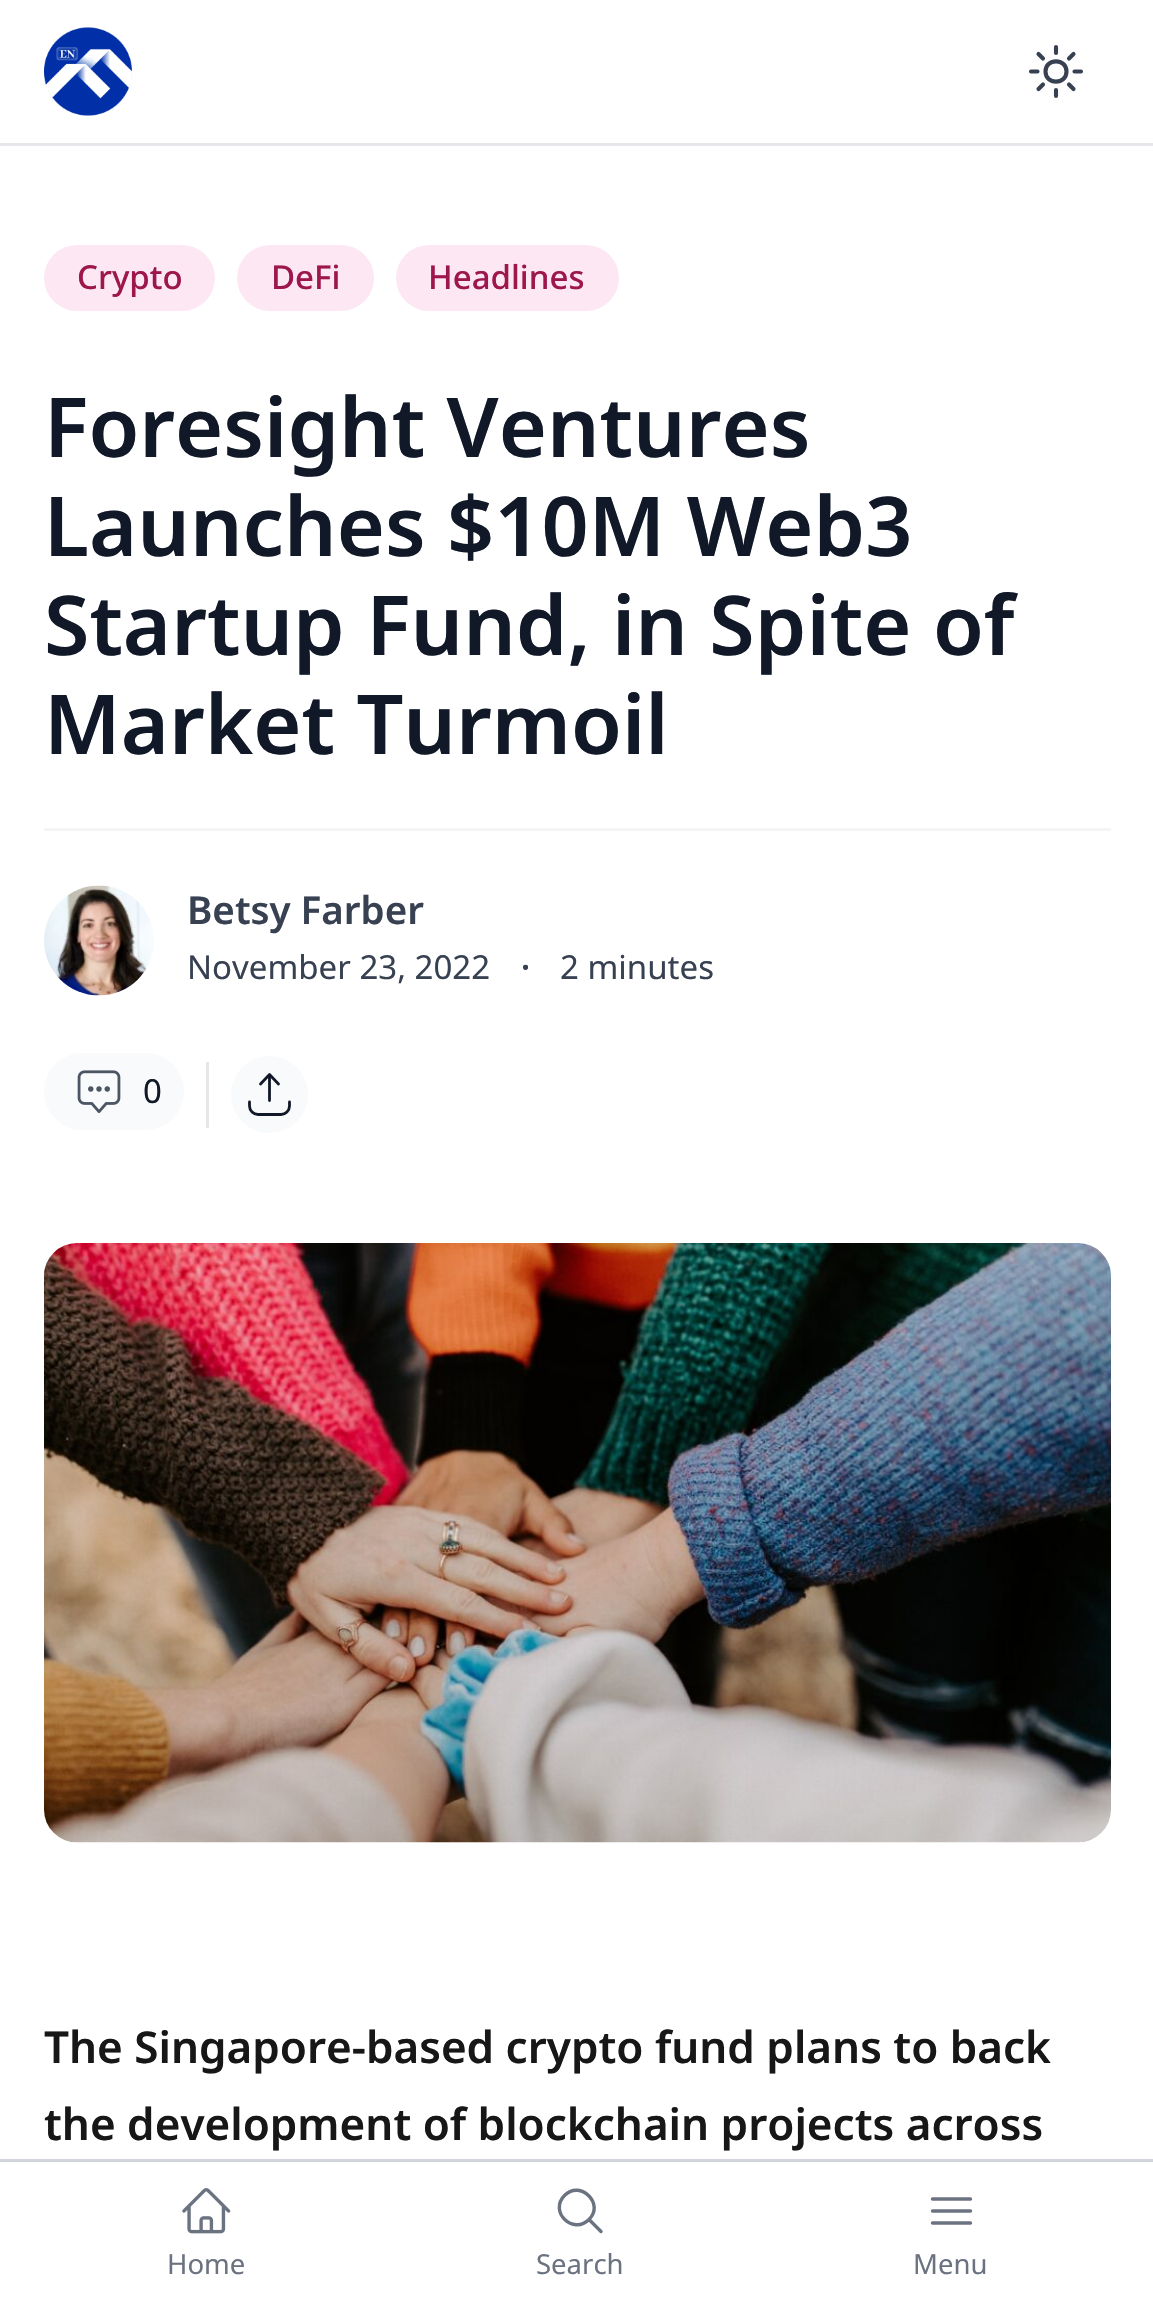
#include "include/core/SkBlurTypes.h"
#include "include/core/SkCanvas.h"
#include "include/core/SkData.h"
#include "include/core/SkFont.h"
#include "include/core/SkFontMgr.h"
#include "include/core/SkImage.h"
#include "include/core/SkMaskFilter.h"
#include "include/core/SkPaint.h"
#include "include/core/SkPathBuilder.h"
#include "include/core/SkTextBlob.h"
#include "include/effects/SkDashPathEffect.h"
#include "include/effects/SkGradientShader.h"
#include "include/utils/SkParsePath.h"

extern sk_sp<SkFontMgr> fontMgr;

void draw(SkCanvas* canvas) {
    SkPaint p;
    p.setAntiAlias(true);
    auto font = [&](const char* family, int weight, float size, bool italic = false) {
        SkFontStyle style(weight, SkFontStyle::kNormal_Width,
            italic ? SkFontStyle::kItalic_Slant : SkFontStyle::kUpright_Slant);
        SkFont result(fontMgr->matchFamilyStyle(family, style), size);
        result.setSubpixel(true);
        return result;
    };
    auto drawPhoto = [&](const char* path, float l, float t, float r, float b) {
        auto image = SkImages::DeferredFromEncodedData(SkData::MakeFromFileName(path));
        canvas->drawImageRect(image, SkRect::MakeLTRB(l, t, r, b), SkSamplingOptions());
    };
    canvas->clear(0xFFFFFFFF);
    p.setColor(0xFFE5E7EB);
    canvas->drawRect(SkRect::MakeLTRB(0, 143, 1153, 146), p);
    drawPhoto("media/1.png", 44, 27, 132, 116);
    p.setStyle(SkPaint::kStroke_Style);
    p.setStrokeWidth(4.1f);
    p.setStrokeCap(SkPaint::kRound_Cap);
    p.setStrokeJoin(SkPaint::kRound_Join);
    p.setColor(0xFF374151);
    canvas->drawPath(SkPathBuilder().moveTo(1056, 47).lineTo(1056, 53).moveTo(1073.5f, 54).lineTo(1069, 58.5f).moveTo(1081, 71.5f).lineTo(1074.5f, 71.5f).moveTo(1073.5f, 89).lineTo(1069, 84.5f).moveTo(1056, 90).lineTo(1056, 96).moveTo(1043, 84.5f).lineTo(1038.5f, 89).moveTo(1037.5f, 71.5f).lineTo(1031, 71.5f).moveTo(1043, 58.5f).lineTo(1038.5f, 54).moveTo(1066.5f, 71.5f).cubicTo(1066.5f, 85, 1045.5f, 85, 1045.5f, 71.5f).cubicTo(1045.5f, 58, 1066.5f, 58, 1066.5f, 71.5f).close().detach(), p);
    p.setStyle(SkPaint::kFill_Style);
    p.setColor(0xFFFCE7F3);
    canvas->drawRoundRect(SkRect::MakeLTRB(44, 245, 215, 311), 33, 33, p);
    auto font1 = font("Noto Sans", 500, 33);
    p.setColor(0xFF9D174D);
    canvas->drawString("Crypto", 77, 289, font1, p);
    p.setColor(0xFFFCE7F3);
    canvas->drawRoundRect(SkRect::MakeLTRB(237, 245, 374, 311), 33, 33, p);
    p.setColor(0xFF9D174D);
    canvas->drawString("DeFi", 271, 289, font1, p);
    p.setColor(0xFFFCE7F3);
    canvas->drawRoundRect(SkRect::MakeLTRB(396, 245, 619, 311), 33, 33, p);
    p.setColor(0xFF9D174D);
    canvas->drawString("Headlines", 428, 289, font1, p);
    auto font2 = font("Noto Sans", 600, 82.5f);
    p.setColor(0xFF111827);
    {
        const struct { const char* s; float x, y; } items[] = {
            {"Foresight Ventures", 44, 457},
            {"Launches $10M Web3", 44, 556},
            {"Startup Fund, in Spite of", 44, 655},
            {"Market Turmoil", 44, 754},
        };
        for (auto [s, x, y] : items) {
            canvas->drawString(s, x, y, font2, p);
        }
    }
    p.setColor(0xFFF3F4F6);
    canvas->drawRect(SkRect::MakeLTRB(44, 828, 1111, 831), p);
    drawPhoto("media/2.png", 44, 885, 154, 996);
    auto font3 = font("Noto Sans", 600, 38.5f);
    p.setColor(0xFF374151);
    canvas->drawString("Betsy Farber", 187, 924, font3, p);
    auto font4 = font("Noto Sans", 400, 33);
    canvas->drawString("November 23, 2022", 187, 979, font4, p);
    auto font5 = font("Noto Sans", 600, 33);
    canvas->drawString("·", 521, 979, font5, p);
    canvas->drawString("2 minutes", 560, 979, font4, p);
    p.setColor(0xFFF9FAFB);
    canvas->drawRoundRect(SkRect::MakeLTRB(44, 1053, 184, 1130), 38.5f, 38.5f, p);
    drawPhoto("media/3.png", 77, 1070, 121, 1114);
    p.setColor(0xFF111827);
    canvas->drawString("0", 143, 1103, font4, p);
    p.setColor(0xFFE5E7EB);
    canvas->drawRect(SkRect::MakeLTRB(206, 1062, 209, 1128), p);
    p.setColor(0xFFF9FAFB);
    canvas->drawCircle(269.5f, 1094.5f, 38.5f, p);
    p.setStyle(SkPaint::kStroke_Style);
    p.setStrokeWidth(2.8f);
    p.setColor(0xFF111827);
    canvas->drawPath(SkPathBuilder().moveTo(249.5f, 1102).lineTo(249.5f, 1106).cubicTo(249.5f, 1110.5f, 253.5f, 1114.5f, 258, 1114.5f).lineTo(281, 1114.5f).cubicTo(285.5f, 1114.5f, 289.5f, 1110.5f, 289.5f, 1106).lineTo(289.5f, 1102).moveTo(269.5f, 1100.5f).lineTo(269.5f, 1075).moveTo(260.5f, 1084).lineTo(269.5f, 1074.5f).lineTo(278.5f, 1084).detach(), p);
    drawPhoto("media/4.png", 44, 1243, 1111, 1843);
    auto font6 = font("Noto Sans", 600, 44);
    p.setStyle(SkPaint::kFill_Style);
    p.setColor(0xFF171717);
    canvas->drawString("The Singapore-based crypto fund plans to back", 44, 2063, font6, p);
    canvas->drawString("the development of blockchain projects across", 44, 2140, font6, p);
    p.setColor(0xFFD1D5DB);
    canvas->drawRect(SkRect::MakeLTRB(0, 2159, 1153, 2162), p);
    drawPhoto("media/5.png", 182, 2188, 231, 2234);
    auto font7 = font("Noto Sans", 400, 27.5f);
    p.setColor(0xFF6B7280);
    canvas->drawString("Home", 167, 2274, font7, p);
    p.setStyle(SkPaint::kStroke_Style);
    p.setStrokeWidth(3.4f);
    canvas->drawPath(SkPathBuilder().moveTo(601, 2231.5f).lineTo(589, 2219.5f).moveTo(589, 2219.5f).cubicTo(605, 2204, 580.5f, 2179.5f, 564.5f, 2195.5f).cubicTo(548.5f, 2211.5f, 573, 2235.5f, 589, 2219.5f).close().detach(), p);
    p.setStyle(SkPaint::kFill_Style);
    canvas->drawString("Search", 536, 2274, font7, p);
    p.setStyle(SkPaint::kStroke_Style);
    canvas->drawPath(SkPathBuilder().moveTo(932.5f, 2199).lineTo(970.5f, 2199).moveTo(932.5f, 2211).lineTo(970.5f, 2211).moveTo(932.5f, 2223).lineTo(970.5f, 2223).detach(), p);
    p.setStyle(SkPaint::kFill_Style);
    canvas->drawString("Menu", 913, 2274, font7, p);
}
